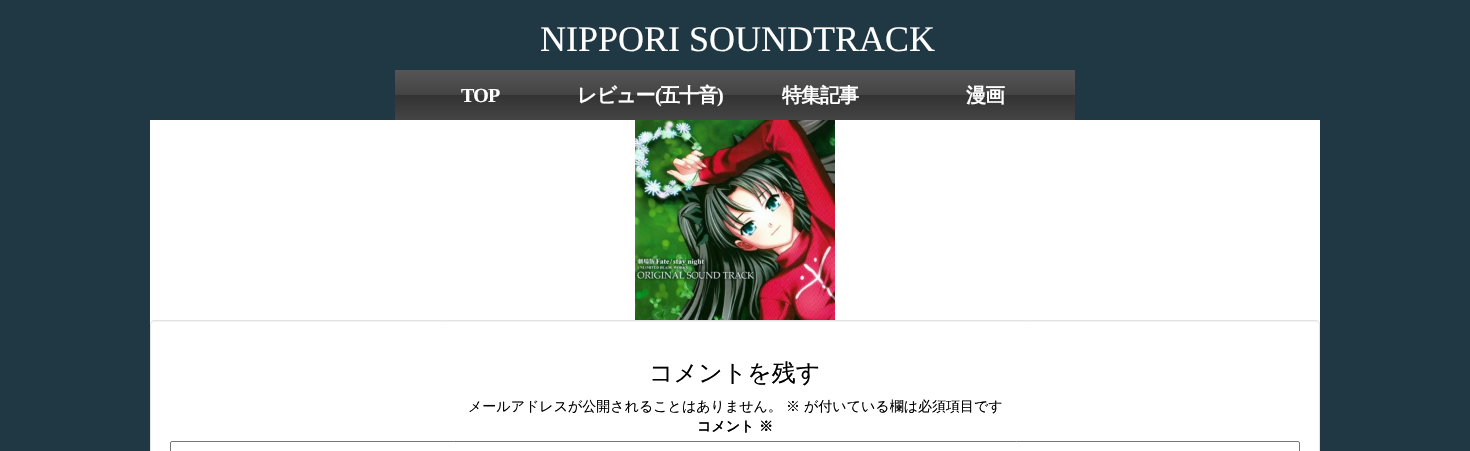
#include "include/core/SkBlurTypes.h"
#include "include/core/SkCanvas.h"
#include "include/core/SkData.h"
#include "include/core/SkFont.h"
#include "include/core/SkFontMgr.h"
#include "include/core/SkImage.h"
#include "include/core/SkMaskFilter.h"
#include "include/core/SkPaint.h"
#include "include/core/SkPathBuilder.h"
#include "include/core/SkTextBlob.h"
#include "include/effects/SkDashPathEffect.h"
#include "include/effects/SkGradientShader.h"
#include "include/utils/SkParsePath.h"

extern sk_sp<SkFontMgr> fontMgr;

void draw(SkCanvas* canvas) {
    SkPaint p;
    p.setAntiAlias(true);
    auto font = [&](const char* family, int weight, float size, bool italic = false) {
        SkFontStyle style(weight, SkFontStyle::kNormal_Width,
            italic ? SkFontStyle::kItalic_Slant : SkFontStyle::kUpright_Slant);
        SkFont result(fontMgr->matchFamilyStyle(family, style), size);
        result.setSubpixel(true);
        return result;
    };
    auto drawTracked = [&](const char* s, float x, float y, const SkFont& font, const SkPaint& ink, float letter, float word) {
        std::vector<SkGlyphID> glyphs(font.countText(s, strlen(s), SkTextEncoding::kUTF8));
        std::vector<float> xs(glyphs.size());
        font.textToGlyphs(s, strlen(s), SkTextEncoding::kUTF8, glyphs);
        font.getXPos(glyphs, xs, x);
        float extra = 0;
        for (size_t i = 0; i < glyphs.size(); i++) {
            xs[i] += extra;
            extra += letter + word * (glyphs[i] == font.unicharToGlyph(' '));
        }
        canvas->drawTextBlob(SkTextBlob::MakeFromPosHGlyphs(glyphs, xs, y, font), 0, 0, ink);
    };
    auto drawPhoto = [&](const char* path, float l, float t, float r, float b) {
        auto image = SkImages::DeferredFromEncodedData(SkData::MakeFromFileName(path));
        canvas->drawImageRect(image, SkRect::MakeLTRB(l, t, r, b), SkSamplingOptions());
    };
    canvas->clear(0xFF203744);
    p.setColor(0xFFFFFFFF);
    canvas->drawRect(SkRect::MakeLTRB(150, 120, 1320, 451), p);
    auto font1 = font("Liberation Serif", 400, 36);
    canvas->drawString("NIPPORI SOUNDTRACK", 540, 51, font1, p);
    {
        const SkColor colors[] = {0xFF555555, 0xFF444444, 0xFF333333, 0xFF444444};
        const float stops[] = {0, 0.5f, 0.5f, 1};
        const SkPoint ends[] = {{395, 70}, {395, 120}};
        p.setShader(SkGradientShader::MakeLinear(ends, colors, stops, 4, SkTileMode::kClamp));
        p.setAlpha(255);
    }
    canvas->drawRect(SkRect::MakeLTRB(395, 70, 565, 120), p);
    auto font2 = font("Liberation Serif", 700, 20);
    p.setShader(nullptr);
    p.setColor(0xFFFFFFFF);
    drawTracked("TOP", 461, 102, font2, p, -1, 0);
    {
        const SkColor colors[] = {0xFF555555, 0xFF444444, 0xFF333333, 0xFF444444};
        const float stops[] = {0, 0.5f, 0.5f, 1};
        const SkPoint ends[] = {{565, 70}, {565, 120}};
        p.setShader(SkGradientShader::MakeLinear(ends, colors, stops, 4, SkTileMode::kClamp));
        p.setAlpha(255);
    }
    canvas->drawRect(SkRect::MakeLTRB(565, 70, 735, 120), p);
    auto font3 = font("WenQuanYi Zen Hei", 700, 20);
    p.setShader(nullptr);
    p.setColor(0xFFFFFFFF);
    drawTracked("レビュー", 577, 102, font3, p, -1, 0);
    drawTracked("(", 655, 102, font2, p, -1, 0);
    drawTracked("五十音", 660, 102, font3, p, -1, 0);
    drawTracked(")", 717, 102, font2, p, -1, 0);
    {
        const SkColor colors[] = {0xFF555555, 0xFF444444, 0xFF333333, 0xFF444444};
        const float stops[] = {0, 0.5f, 0.5f, 1};
        const SkPoint ends[] = {{735, 70}, {735, 120}};
        p.setShader(SkGradientShader::MakeLinear(ends, colors, stops, 4, SkTileMode::kClamp));
        p.setAlpha(255);
    }
    canvas->drawRect(SkRect::MakeLTRB(735, 70, 905, 120), p);
    p.setShader(nullptr);
    p.setColor(0xFFFFFFFF);
    drawTracked("特集記事", 782, 102, font3, p, -1, 0);
    {
        const SkColor colors[] = {0xFF555555, 0xFF444444, 0xFF333333, 0xFF444444};
        const float stops[] = {0, 0.5f, 0.5f, 1};
        const SkPoint ends[] = {{905, 70}, {905, 120}};
        p.setShader(SkGradientShader::MakeLinear(ends, colors, stops, 4, SkTileMode::kClamp));
        p.setAlpha(255);
    }
    canvas->drawRect(SkRect::MakeLTRB(905, 70, 1075, 120), p);
    p.setShader(nullptr);
    p.setColor(0xFFFFFFFF);
    drawTracked("漫画", 966, 102, font3, p, -1, 0);
    drawPhoto("media/1.png", 635, 120, 835, 320);
    p.setColor(0xFFF2F2F2);
    canvas->drawPath(SkPathBuilder().moveTo(154, 322).lineTo(1316, 322).cubicTo(1318, 322, 1319, 323, 1319, 325).lineTo(1319, 324).cubicTo(1319, 322, 1318, 321, 1316, 321).lineTo(154, 321).cubicTo(152, 321, 151, 322, 151, 324).lineTo(151, 325).cubicTo(151, 323, 152, 322, 154, 322).close().detach(), p);
    p.setStyle(SkPaint::kStroke_Style);
    p.setStrokeWidth(1);
    p.setColor(0xFFE3E3E3);
    canvas->drawRoundRect(SkRect::MakeLTRB(150.5f, 320.5f, 1319.5f, 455.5f), 3.5f, 3.5f, p);
    auto font4 = font("WenQuanYi Zen Hei", 500, 24);
    p.setStyle(SkPaint::kFill_Style);
    p.setColor(0xFF000000);
    canvas->drawString("コメントを残す", 649, 381, font4, p);
    auto font5 = font("WenQuanYi Zen Hei", 500, 14);
    {
        const struct { const char* s; float x, y; } items[] = {
            {"メールアドレスが公開されることはありません。", 468, 411},
            {"※", 786, 411},
            {"が付いている欄は必須項目です", 804, 411},
        };
        for (auto [s, x, y] : items) {
            canvas->drawString(s, x, y, font5, p);
        }
    }
    auto font6 = font("WenQuanYi Zen Hei", 700, 14);
    canvas->drawString("コメント", 697, 431, font6, p);
    canvas->drawString("※", 759, 431, font6, p);
    p.setStyle(SkPaint::kStroke_Style);
    p.setColor(0xFF767676);
    canvas->drawRoundRect(SkRect::MakeLTRB(170.5f, 441.5f, 1299.5f, 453.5f), 1.5f, 1.5f, p);
}
